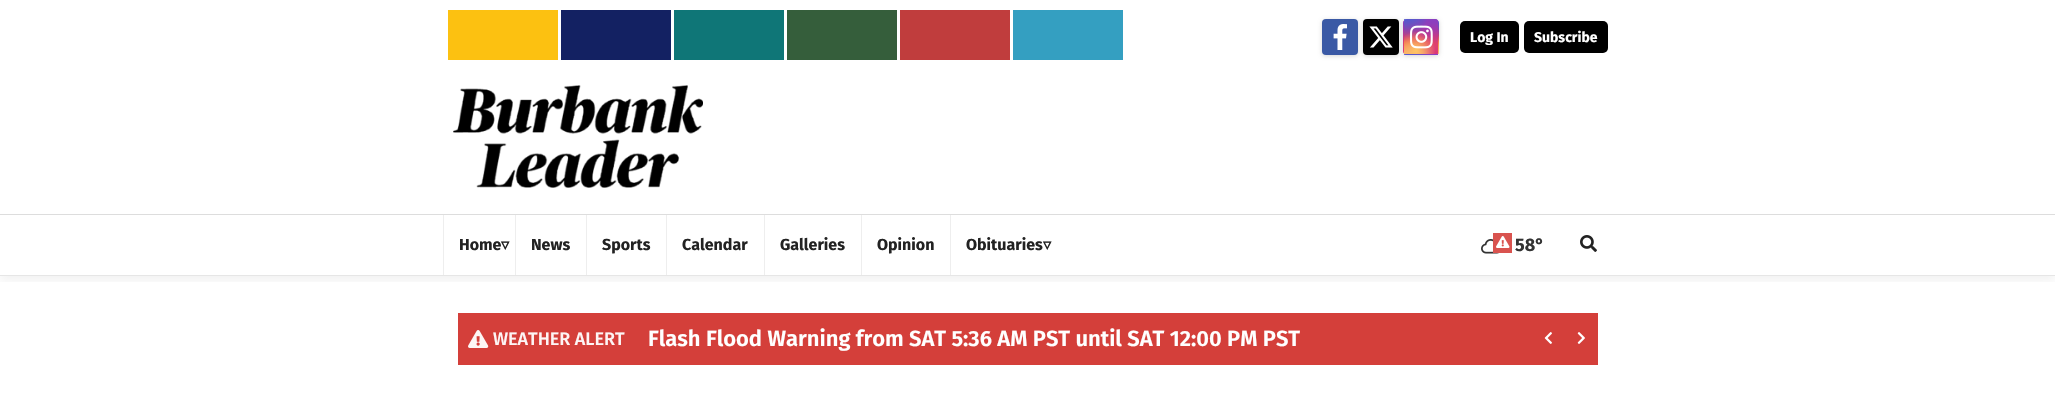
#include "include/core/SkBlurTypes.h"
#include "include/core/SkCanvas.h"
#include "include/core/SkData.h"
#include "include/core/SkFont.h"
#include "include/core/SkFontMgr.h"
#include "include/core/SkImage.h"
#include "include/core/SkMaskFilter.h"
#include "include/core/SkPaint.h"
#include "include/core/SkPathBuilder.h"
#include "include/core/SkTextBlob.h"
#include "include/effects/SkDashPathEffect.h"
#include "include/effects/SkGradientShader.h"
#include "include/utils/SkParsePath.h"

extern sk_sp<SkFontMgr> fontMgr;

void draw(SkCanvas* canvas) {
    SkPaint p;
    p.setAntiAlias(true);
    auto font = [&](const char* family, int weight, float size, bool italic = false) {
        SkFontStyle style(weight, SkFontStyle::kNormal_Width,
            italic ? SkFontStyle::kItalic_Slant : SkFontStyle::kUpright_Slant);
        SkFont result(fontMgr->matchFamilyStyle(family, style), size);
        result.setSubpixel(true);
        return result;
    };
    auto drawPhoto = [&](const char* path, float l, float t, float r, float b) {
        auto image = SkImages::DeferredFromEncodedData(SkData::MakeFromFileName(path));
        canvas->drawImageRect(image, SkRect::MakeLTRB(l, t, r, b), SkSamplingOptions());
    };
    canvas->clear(0xFFFFFFFF);
    {
        const struct { float l, t, r, b; SkColor color; } items[] = {
            {448, 10, 558, 60, 0xFFFCC111},
            {561, 10, 671, 60, 0xFF132162},
            {674, 10, 784, 60, 0xFF0F7677},
            {787, 10, 897, 60, 0xFF355E3B},
            {900, 10, 1010, 60, 0xFFC03D3D},
            {1013, 10, 1123, 60, 0xFF349FC1},
        };
        for (auto [l, t, r, b, color] : items) {
            p.setColor(color);
            canvas->drawRect(SkRect::MakeLTRB(l, t, r, b), p);
        }
    }
    p.setColor(0x29000000);
    p.setMaskFilter(SkMaskFilter::MakeBlur(kNormal_SkBlurStyle, 2));
    canvas->drawRoundRect(SkRect::MakeLTRB(1322, 20, 1358, 56), 4, 4, p);
    p.setMaskFilter(nullptr);
    p.setColor(0xFF3A59A5);
    canvas->drawRoundRect(SkRect::MakeLTRB(1322, 19, 1358, 55), 4, 4, p);
    drawPhoto("media/1.png", 1333, 24, 1347, 50);
    p.setColor(0x29000000);
    p.setMaskFilter(SkMaskFilter::MakeBlur(kNormal_SkBlurStyle, 2));
    canvas->drawRoundRect(SkRect::MakeLTRB(1363, 20, 1399, 56), 4, 4, p);
    p.setMaskFilter(nullptr);
    p.setColor(0xFF000000);
    canvas->drawRoundRect(SkRect::MakeLTRB(1363, 19, 1399, 55), 4, 4, p);
    drawPhoto("media/2.png", 1369, 26, 1393, 48);
    p.setColor(0x29000000);
    p.setMaskFilter(SkMaskFilter::MakeBlur(kNormal_SkBlurStyle, 2));
    canvas->drawRoundRect(SkRect::MakeLTRB(1403, 20, 1439, 56), 4, 4, p);
    p.setMaskFilter(nullptr);
    canvas->save();
    canvas->clipPath(SkPathBuilder().moveTo(1407, 19).lineTo(1435, 19).cubicTo(1437, 19, 1439, 21, 1439, 23).lineTo(1439, 51).cubicTo(1439, 53, 1437, 55, 1435, 55).lineTo(1407, 55).cubicTo(1405, 55, 1403, 53, 1403, 51).lineTo(1403, 23).cubicTo(1403, 21, 1405, 19, 1407, 19).close().detach(), true);
    {
        const SkColor colors[] = {0xFF6559CA, 0xFFBC318F, 0xFFE33F5F, 0xFFF77638, 0xFFFEC66D};
        const float stops[] = {0, 0.3f, 0.5f, 0.7f, 1};
        const SkPoint ends[] = {{1421, 19}, {1421, 54}};
        p.setShader(SkGradientShader::MakeLinear(ends, colors, stops, 5, SkTileMode::kClamp));
        p.setAlpha(255);
    }
    canvas->drawPath(SkPathBuilder().moveTo(1407, 19).lineTo(1435, 19).cubicTo(1437, 19, 1439, 21, 1439, 23).lineTo(1439, 54).lineTo(1403, 54).lineTo(1403, 23).cubicTo(1403, 21, 1405, 19, 1407, 19).close().detach(), p);
    {
        const SkColor colors[] = {0xFF6559CA, 0xFFBC318F, 0xFFE33F5F, 0xFFF77638, 0xFFFEC66D};
        const float stops[] = {0, 0.3f, 0.5f, 0.7f, 1};
        const SkPoint ends[] = {{1421, 54}, {1421, 90}};
        p.setShader(SkGradientShader::MakeLinear(ends, colors, stops, 5, SkTileMode::kClamp));
        p.setAlpha(255);
    }
    canvas->drawRect(SkRect::MakeLTRB(1403, 54, 1439, 55), p);
    {
        const SkColor colors[] = {0xFFD9317A, 0x00D9317A};
        const float stops[] = {0, 1};
        SkMatrix m = SkMatrix::Translate(1404, 54).preScale(49, 50);
        p.setShader(SkGradientShader::MakeRadial({0, 0}, 1, colors, stops, 2, SkTileMode::kClamp, 0, &m));
        p.setAlpha(255);
    }
    canvas->drawRect(SkRect::MakeLTRB(1403, 19, 1404, 54), p);
    {
        const SkColor colors[] = {0xFFD9317A, 0x00D9317A};
        const float stops[] = {0, 1};
        SkMatrix m = SkMatrix::Translate(1438, 54).preScale(49, 50);
        p.setShader(SkGradientShader::MakeRadial({0, 0}, 1, colors, stops, 2, SkTileMode::kClamp, 0, &m));
        p.setAlpha(255);
    }
    canvas->drawRect(SkRect::MakeLTRB(1404, 19, 1438, 54), p);
    canvas->restore();
    {
        const SkColor colors[] = {0xFFD9317A, 0x00D9317A};
        const float stops[] = {0, 1};
        SkMatrix m = SkMatrix::Translate(1473, 54).preScale(49, 50);
        p.setShader(SkGradientShader::MakeRadial({0, 0}, 1, colors, stops, 2, SkTileMode::kClamp, 0, &m));
        p.setAlpha(255);
    }
    canvas->drawRect(SkRect::MakeLTRB(1438, 19, 1439, 54), p);
    {
        const SkColor colors[] = {0xFFD9317A, 0x00D9317A};
        const float stops[] = {0, 1};
        SkMatrix m = SkMatrix::Translate(1438, 90).preScale(49, 50);
        p.setShader(SkGradientShader::MakeRadial({0, 0}, 1, colors, stops, 2, SkTileMode::kClamp, 0, &m));
        p.setAlpha(255);
    }
    canvas->drawRect(SkRect::MakeLTRB(1404, 54, 1438, 55), p);
    {
        const SkColor colors[] = {0xFF893DC2, 0x00893DC2};
        const float stops[] = {0, 0.5f};
        SkMatrix m = SkMatrix::Translate(1425, 12).preScale(29, 60);
        p.setShader(SkGradientShader::MakeRadial({0, 0}, 1, colors, stops, 2, SkTileMode::kClamp, 0, &m));
        p.setAlpha(255);
    }
    canvas->drawRect(SkRect::MakeLTRB(1413, 19, 1438, 41), p);
    {
        const SkColor colors[] = {0xFF893DC2, 0x00893DC2};
        const float stops[] = {0, 0.5f};
        SkMatrix m = SkMatrix::Translate(1425, 47).preScale(29, 60);
        p.setShader(SkGradientShader::MakeRadial({0, 0}, 1, colors, stops, 2, SkTileMode::kClamp, 0, &m));
        p.setAlpha(255);
    }
    canvas->drawRect(SkRect::MakeLTRB(1413, 54, 1438, 55), p);
    canvas->save();
    canvas->clipPath(SkPathBuilder().moveTo(1407, 19).lineTo(1435, 19).cubicTo(1437, 19, 1439, 21, 1439, 23).lineTo(1439, 51).cubicTo(1439, 53, 1437, 55, 1435, 55).lineTo(1407, 55).cubicTo(1405, 55, 1403, 53, 1403, 51).lineTo(1403, 23).cubicTo(1403, 21, 1405, 19, 1407, 19).close().detach(), true);
    {
        const SkColor colors[] = {0xFF893DC2, 0x00893DC2};
        const float stops[] = {0, 0.5f};
        SkMatrix m = SkMatrix::Translate(1404, 19).preScale(49, 50);
        p.setShader(SkGradientShader::MakeRadial({0, 0}, 1, colors, stops, 2, SkTileMode::kClamp, 0, &m));
        p.setAlpha(255);
    }
    canvas->drawRect(SkRect::MakeLTRB(1403, 19, 1404, 43), p);
    {
        const SkColor colors[] = {0xFF893DC2, 0x00893DC2};
        const float stops[] = {0, 0.5f};
        SkMatrix m = SkMatrix::Translate(1438, 19).preScale(49, 50);
        p.setShader(SkGradientShader::MakeRadial({0, 0}, 1, colors, stops, 2, SkTileMode::kClamp, 0, &m));
        p.setAlpha(255);
    }
    canvas->drawRect(SkRect::MakeLTRB(1414, 19, 1438, 43), p);
    canvas->restore();
    {
        const SkColor colors[] = {0xFF893DC2, 0x00893DC2};
        const float stops[] = {0, 0.5f};
        SkMatrix m = SkMatrix::Translate(1438, 54).preScale(49, 50);
        p.setShader(SkGradientShader::MakeRadial({0, 0}, 1, colors, stops, 2, SkTileMode::kClamp, 0, &m));
        p.setAlpha(255);
    }
    canvas->drawRect(SkRect::MakeLTRB(1414, 54, 1438, 55), p);
    {
        const SkColor colors[] = {0xFF5258CF, 0x005258CF};
        const float stops[] = {0, 0.5f};
        SkMatrix m = SkMatrix::Translate(1411, 1.3f).preScale(39, 75);
        p.setShader(SkGradientShader::MakeRadial({0, 0}, 1, colors, stops, 2, SkTileMode::kClamp, 0, &m));
        p.setAlpha(255);
    }
    canvas->drawRect(SkRect::MakeLTRB(1404, 19, 1427, 38), p);
    canvas->save();
    canvas->clipPath(SkPathBuilder().moveTo(1407, 19).lineTo(1435, 19).cubicTo(1437, 19, 1439, 21, 1439, 23).lineTo(1439, 51).cubicTo(1439, 53, 1437, 55, 1435, 55).lineTo(1407, 55).cubicTo(1405, 55, 1403, 53, 1403, 51).lineTo(1403, 23).cubicTo(1403, 21, 1405, 19, 1407, 19).close().detach(), true);
    {
        const SkColor colors[] = {0xFF5258CF, 0x005258CF};
        const float stops[] = {0, 0.5f};
        SkMatrix m = SkMatrix::Translate(1445, 1.3f).preScale(39, 75);
        p.setShader(SkGradientShader::MakeRadial({0, 0}, 1, colors, stops, 2, SkTileMode::kClamp, 0, &m));
        p.setAlpha(255);
    }
    canvas->drawRect(SkRect::MakeLTRB(1438, 19, 1439, 36), p);
    canvas->restore();
    {
        const SkColor colors[] = {0xFF5258CF, 0x005258CF};
        const float stops[] = {0, 0.5f};
        SkMatrix m = SkMatrix::Translate(1411, 37).preScale(39, 75);
        p.setShader(SkGradientShader::MakeRadial({0, 0}, 1, colors, stops, 2, SkTileMode::kClamp, 0, &m));
        p.setAlpha(255);
    }
    canvas->drawRect(SkRect::MakeLTRB(1404, 54, 1428, 55), p);
    {
        const SkColor colors[] = {0xFF5258CF, 0x005258CF};
        const float stops[] = {0, 0.5f};
        SkMatrix m = SkMatrix::Translate(1404, 10).preScale(49, 63);
        p.setShader(SkGradientShader::MakeRadial({0, 0}, 1, colors, stops, 2, SkTileMode::kClamp, 0, &m));
        p.setAlpha(255);
    }
    canvas->drawRect(SkRect::MakeLTRB(1404, 19, 1426, 41), p);
    canvas->save();
    canvas->clipPath(SkPathBuilder().moveTo(1407, 19).lineTo(1435, 19).cubicTo(1437, 19, 1439, 21, 1439, 23).lineTo(1439, 51).cubicTo(1439, 53, 1437, 55, 1435, 55).lineTo(1407, 55).cubicTo(1405, 55, 1403, 53, 1403, 51).lineTo(1403, 23).cubicTo(1403, 21, 1405, 19, 1407, 19).close().detach(), true);
    {
        const SkColor colors[] = {0xFF5258CF, 0x005258CF};
        const float stops[] = {0, 0.5f};
        SkMatrix m = SkMatrix::Translate(1438, 10).preScale(49, 63);
        p.setShader(SkGradientShader::MakeRadial({0, 0}, 1, colors, stops, 2, SkTileMode::kClamp, 0, &m));
        p.setAlpha(255);
    }
    canvas->drawRect(SkRect::MakeLTRB(1438, 19, 1439, 41), p);
    canvas->restore();
    {
        const SkColor colors[] = {0xFF5258CF, 0x005258CF};
        const float stops[] = {0, 0.5f};
        SkMatrix m = SkMatrix::Translate(1404, 46).preScale(49, 63);
        p.setShader(SkGradientShader::MakeRadial({0, 0}, 1, colors, stops, 2, SkTileMode::kClamp, 0, &m));
        p.setAlpha(255);
    }
    canvas->drawRect(SkRect::MakeLTRB(1404, 54, 1427, 55), p);
    {
        const SkColor colors[] = {0xFFFEC564, 0x00FEC564};
        const float stops[] = {0, 0.5f};
        p.setShader(SkGradientShader::MakeRadial({1404, 69}, 60, colors, stops, 2, SkTileMode::kClamp));
        p.setAlpha(255);
    }
    canvas->drawRect(SkRect::MakeLTRB(1404, 40, 1429, 54), p);
    {
        const SkColor colors[] = {0xFFFEC564, 0x00FEC564};
        const float stops[] = {0, 0.5f};
        p.setShader(SkGradientShader::MakeRadial({1438, 69}, 60, colors, stops, 2, SkTileMode::kClamp));
        p.setAlpha(255);
    }
    canvas->drawRect(SkRect::MakeLTRB(1438, 40, 1439, 54), p);
    {
        const SkColor colors[] = {0xFFFEC564, 0x00FEC564};
        const float stops[] = {0, 0.5f};
        p.setShader(SkGradientShader::MakeRadial({1416, 51}, 39, colors, stops, 2, SkTileMode::kClamp));
        p.setAlpha(255);
    }
    canvas->drawRect(SkRect::MakeLTRB(1404, 32, 1435, 54), p);
    {
        const SkColor colors[] = {0xFFFEC564, 0x00FEC564};
        const float stops[] = {0, 0.5f};
        p.setShader(SkGradientShader::MakeRadial({1450, 51}, 39, colors, stops, 2, SkTileMode::kClamp));
        p.setAlpha(255);
    }
    canvas->drawRect(SkRect::MakeLTRB(1438, 36, 1439, 54), p);
    drawPhoto("media/3.png", 1410, 25, 1433, 49);
    p.setShader(nullptr);
    p.setColor(0xFF000000);
    canvas->drawRoundRect(SkRect::MakeLTRB(1460, 21, 1519, 53), 5, 5, p);
    auto font1 = font("Fira Sans", 700, 14);
    p.setColor(0xFFFFFFFF);
    canvas->drawString("Log In", 1470, 42, font1, p);
    p.setColor(0xFF000000);
    canvas->drawRoundRect(SkRect::MakeLTRB(1524, 21, 1608, 53), 5, 5, p);
    p.setColor(0xFFFFFFFF);
    canvas->drawString("Subscribe", 1534, 42, font1, p);
    p.setColor(0xFFDDDDDD);
    canvas->drawRect(SkRect::MakeLTRB(0, 214, 2055, 215), p);
    drawPhoto("media/4.png", 453, 85, 703, 188);
    canvas->save();
    canvas->clipRect(SkRect::MakeLTRB(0, 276, 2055, 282));
    p.setColor(0x0D000000);
    p.setMaskFilter(SkMaskFilter::MakeBlur(kNormal_SkBlurStyle, 5));
    canvas->drawRect(SkRect::MakeLTRB(0, 220, 2055, 281), p);
    p.setMaskFilter(nullptr);
    canvas->restore();
    p.setColor(0xFFE6E6E6);
    canvas->drawRect(SkRect::MakeLTRB(0, 275, 2055, 276), p);
    p.setColor(0xFFEEEEEE);
    canvas->drawRect(SkRect::MakeLTRB(443, 215, 444, 275), p);
    auto font2 = font("Fira Sans", 700, 16);
    p.setColor(0xFF222222);
    canvas->drawString("Home", 459, 250, font2, p);
    auto font3 = font("DejaVu Sans", 700, 16);
    canvas->drawString("▿", 501, 250, font3, p);
    p.setColor(0xFFEEEEEE);
    canvas->drawRect(SkRect::MakeLTRB(515, 215, 516, 275), p);
    p.setColor(0xFF222222);
    canvas->drawString("News", 531, 250, font2, p);
    p.setColor(0xFFEEEEEE);
    canvas->drawRect(SkRect::MakeLTRB(586, 215, 587, 275), p);
    p.setColor(0xFF222222);
    canvas->drawString("Sports", 602, 250, font2, p);
    p.setColor(0xFFEEEEEE);
    canvas->drawRect(SkRect::MakeLTRB(666, 215, 667, 275), p);
    p.setColor(0xFF222222);
    canvas->drawString("Calendar", 682, 250, font2, p);
    p.setColor(0xFFEEEEEE);
    canvas->drawRect(SkRect::MakeLTRB(764, 215, 765, 275), p);
    p.setColor(0xFF222222);
    canvas->drawString("Galleries", 780, 250, font2, p);
    p.setColor(0xFFEEEEEE);
    canvas->drawRect(SkRect::MakeLTRB(861, 215, 862, 275), p);
    p.setColor(0xFF222222);
    canvas->drawString("Opinion", 877, 250, font2, p);
    p.setColor(0xFFEEEEEE);
    canvas->drawRect(SkRect::MakeLTRB(950, 215, 951, 275), p);
    p.setColor(0xFF222222);
    canvas->drawString("Obituaries", 966, 250, font2, p);
    canvas->drawString("▿", 1043, 250, font3, p);
    drawPhoto("media/5.png", 1481, 239, 1499, 254);
    p.setColor(0xFFD9534F);
    canvas->drawRect(SkRect::MakeLTRB(1493, 233, 1512, 253), p);
    drawPhoto("media/6.png", 1496, 236, 1510, 248);
    auto font4 = font("Fira Sans", 700, 18);
    p.setColor(0xFF333333);
    canvas->drawString("58°", 1515, 251, font4, p);
    drawPhoto("media/7.png", 1580, 235, 1597, 252);
    p.setColor(0xFFD43F3A);
    canvas->drawRect(SkRect::MakeLTRB(458, 313, 1598, 365), p);
    drawPhoto("media/8.png", 468, 330, 489, 348);
    auto font5 = font("Fira Sans", 500, 18);
    p.setColor(0xFFFDF5F5);
    canvas->drawString("WEATHER ALERT", 493, 345, font5, p);
    auto font6 = font("Fira Sans", 600, 22);
    p.setColor(0xFFFFFFFF);
    canvas->drawString("Flash Flood Warning from SAT 5:36 AM PST until SAT 12:00 PM PST", 648, 346, font6, p);
    drawPhoto("media/9.png", 1544, 332, 1552, 344);
    drawPhoto("media/10.png", 1577, 332, 1585, 344);
}
